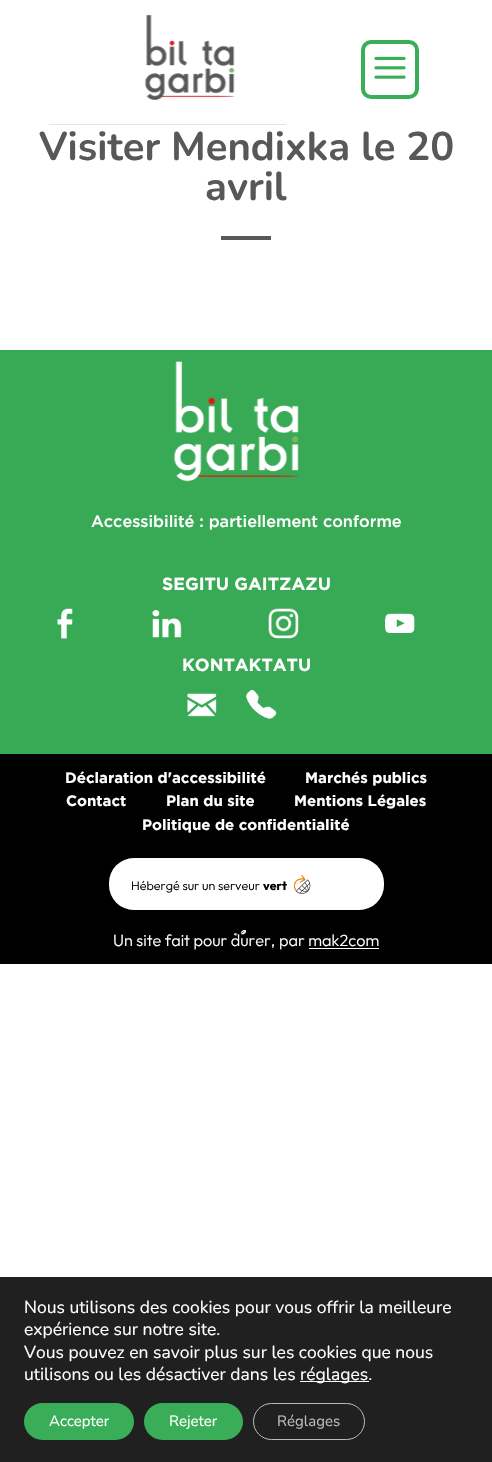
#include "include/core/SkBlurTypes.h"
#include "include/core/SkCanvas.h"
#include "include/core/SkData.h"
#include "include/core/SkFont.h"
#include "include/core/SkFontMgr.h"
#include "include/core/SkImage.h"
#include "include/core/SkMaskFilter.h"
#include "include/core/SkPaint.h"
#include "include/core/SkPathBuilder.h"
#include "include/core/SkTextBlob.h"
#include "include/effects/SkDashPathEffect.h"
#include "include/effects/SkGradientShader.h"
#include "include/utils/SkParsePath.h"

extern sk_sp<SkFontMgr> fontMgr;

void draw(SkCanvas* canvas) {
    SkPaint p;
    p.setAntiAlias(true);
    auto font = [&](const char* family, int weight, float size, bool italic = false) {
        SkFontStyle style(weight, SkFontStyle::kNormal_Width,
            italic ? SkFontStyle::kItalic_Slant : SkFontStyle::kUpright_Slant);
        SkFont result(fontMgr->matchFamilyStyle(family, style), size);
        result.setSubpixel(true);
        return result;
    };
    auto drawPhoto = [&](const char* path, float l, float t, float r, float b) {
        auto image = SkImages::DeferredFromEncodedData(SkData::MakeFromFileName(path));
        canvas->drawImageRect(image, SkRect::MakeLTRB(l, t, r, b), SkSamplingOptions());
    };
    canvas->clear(0xFFFFFFFF);
    p.setColor(0xFFE5E5E5);
    canvas->drawRect(SkRect::MakeLTRB(49, 124, 286, 125), p);
    drawPhoto("media/1.png", 144, 14, 235, 100);
    p.setStyle(SkPaint::kStroke_Style);
    p.setStrokeWidth(4);
    p.setColor(0xFF39AD57);
    canvas->drawRoundRect(SkRect::MakeLTRB(363, 42, 417, 97), 8, 8, p);
    drawPhoto("media/2.png", 374, 56, 406, 79);
    auto font1 = font("Nunito", 700, 40);
    p.setStyle(SkPaint::kFill_Style);
    p.setColor(0xFF58585A);
    canvas->drawString("Visiter Mendixka le 20", 39, 160, font1, p);
    canvas->drawString("avril", 205, 200, font1, p);
    canvas->drawRect(SkRect::MakeLTRB(221, 236, 271, 240), p);
    p.setColor(0xFF38A955);
    canvas->drawRect(SkRect::MakeLTRB(0, 350, 492, 754), p);
    drawPhoto("media/3.png", 173, 361, 299, 482);
    auto font2 = font("Gotham", 500, 16.25f);
    p.setColor(0xFFFFFFFF);
    canvas->drawString("Accessibilité : partiellement conforme", 91, 527, font2, p);
    auto font3 = font("Gotham", 700, 17.5f);
    canvas->drawString("SEGITU GAITZAZU", 162, 590, font3, p);
    drawPhoto("media/4.png", 57, 608, 73, 639);
    drawPhoto("media/5.png", 152, 610, 182, 638);
    drawPhoto("media/6.png", 268, 608, 299, 639);
    drawPhoto("media/7.png", 385, 613, 415, 633);
    canvas->drawString("KONTAKTATU", 182, 671, font3, p);
    drawPhoto("media/8.png", 187, 693, 217, 717);
    drawPhoto("media/9.png", 246, 690, 277, 719);
    p.setColor(0xFF000000);
    canvas->drawRect(SkRect::MakeLTRB(0, 754, 492, 964), p);
    auto font4 = font("Gotham", 700, 15);
    p.setColor(0xFFFFFFFF);
    {
        const struct { const char* s; float x, y; } items[] = {
            {"Déclaration d'accessibilité", 65, 783},
            {"Marchés publics", 305, 783},
            {"Contact", 66, 806},
            {"Plan du site", 166, 806},
            {"Mentions Légales", 294, 806},
            {"Politique de confidentialité", 142, 830},
        };
        for (auto [s, x, y] : items) {
            canvas->drawString(s, x, y, font4, p);
        }
    }
    canvas->drawRoundRect(SkRect::MakeLTRB(109, 858, 384, 910), 25, 25, p);
    p.setStyle(SkPaint::kStroke_Style);
    p.setStrokeWidth(3);
    p.setColor(0x33FFFFFF);
    canvas->drawRoundRect(SkRect::MakeLTRB(110.5f, 859.5f, 382.5f, 908.5f), 23.5f, 23.5f, p);
    auto font5 = font("Outfit", 300, 12.5f);
    p.setStyle(SkPaint::kFill_Style);
    p.setColor(0xFF000000);
    canvas->drawString("Hébergé sur un serveur", 131, 890, font5, p);
    auto font6 = font("Outfit", 700, 12.5f);
    canvas->drawString("vert", 263, 890, font6, p);
    drawPhoto("media/10.png", 294, 875, 311, 894);
    auto font7 = font("Outfit", 300, 16.25f);
    p.setColor(0xFFFFFFFF);
    canvas->drawString("Un site fait pour durer,", 113, 946, font7, p);
    drawPhoto("media/11.png", 234, 930, 246, 936);
    canvas->drawString("par mak2com", 279, 946, font7, p);
    canvas->drawRect(SkRect::MakeLTRB(309, 948, 379, 949), p);
    p.setColor(0xFF202020);
    canvas->drawRect(SkRect::MakeLTRB(0, 1277, 492, 1462), p);
    auto font8 = font("Nunito", 400, 17.5f);
    p.setColor(0xFFFFFFFF);
    {
        const struct { const char* s; float x, y; } items[] = {
            {"Nous utilisons des cookies pour vous offrir la meilleure", 24, 1313},
            {"expérience sur notre site.", 24, 1335},
            {"Vous pouvez en savoir plus sur les cookies que nous", 24, 1358},
            {"utilisons ou les désactiver dans les", 24, 1380},
        };
        for (auto [s, x, y] : items) {
            canvas->drawString(s, x, y, font8, p);
        }
    }
    canvas->drawRect(SkRect::MakeLTRB(300, 1381, 369, 1382), p);
    canvas->drawString("réglages.", 300, 1380, font8, p);
    p.setColor(0xFF39AD57);
    canvas->drawRoundRect(SkRect::MakeLTRB(24, 1403, 134, 1440), 18.5f, 18.5f, p);
    auto font9 = font("Nunito", 400, 15);
    p.setColor(0xFFFFFFFF);
    canvas->drawString("Accepter", 49, 1426, font9, p);
    p.setColor(0xFF39AD57);
    canvas->drawRoundRect(SkRect::MakeLTRB(144, 1403, 243, 1440), 18.5f, 18.5f, p);
    p.setColor(0xFFFFFFFF);
    canvas->drawString("Rejeter", 169, 1426, font9, p);
    p.setStyle(SkPaint::kStroke_Style);
    p.setStrokeWidth(1);
    p.setColor(0xFFBCBCBC);
    canvas->drawRoundRect(SkRect::MakeLTRB(253.5f, 1403.5f, 364.5f, 1439.5f), 18, 18, p);
    p.setStyle(SkPaint::kFill_Style);
    canvas->drawString("Réglages", 277, 1426, font9, p);
}
